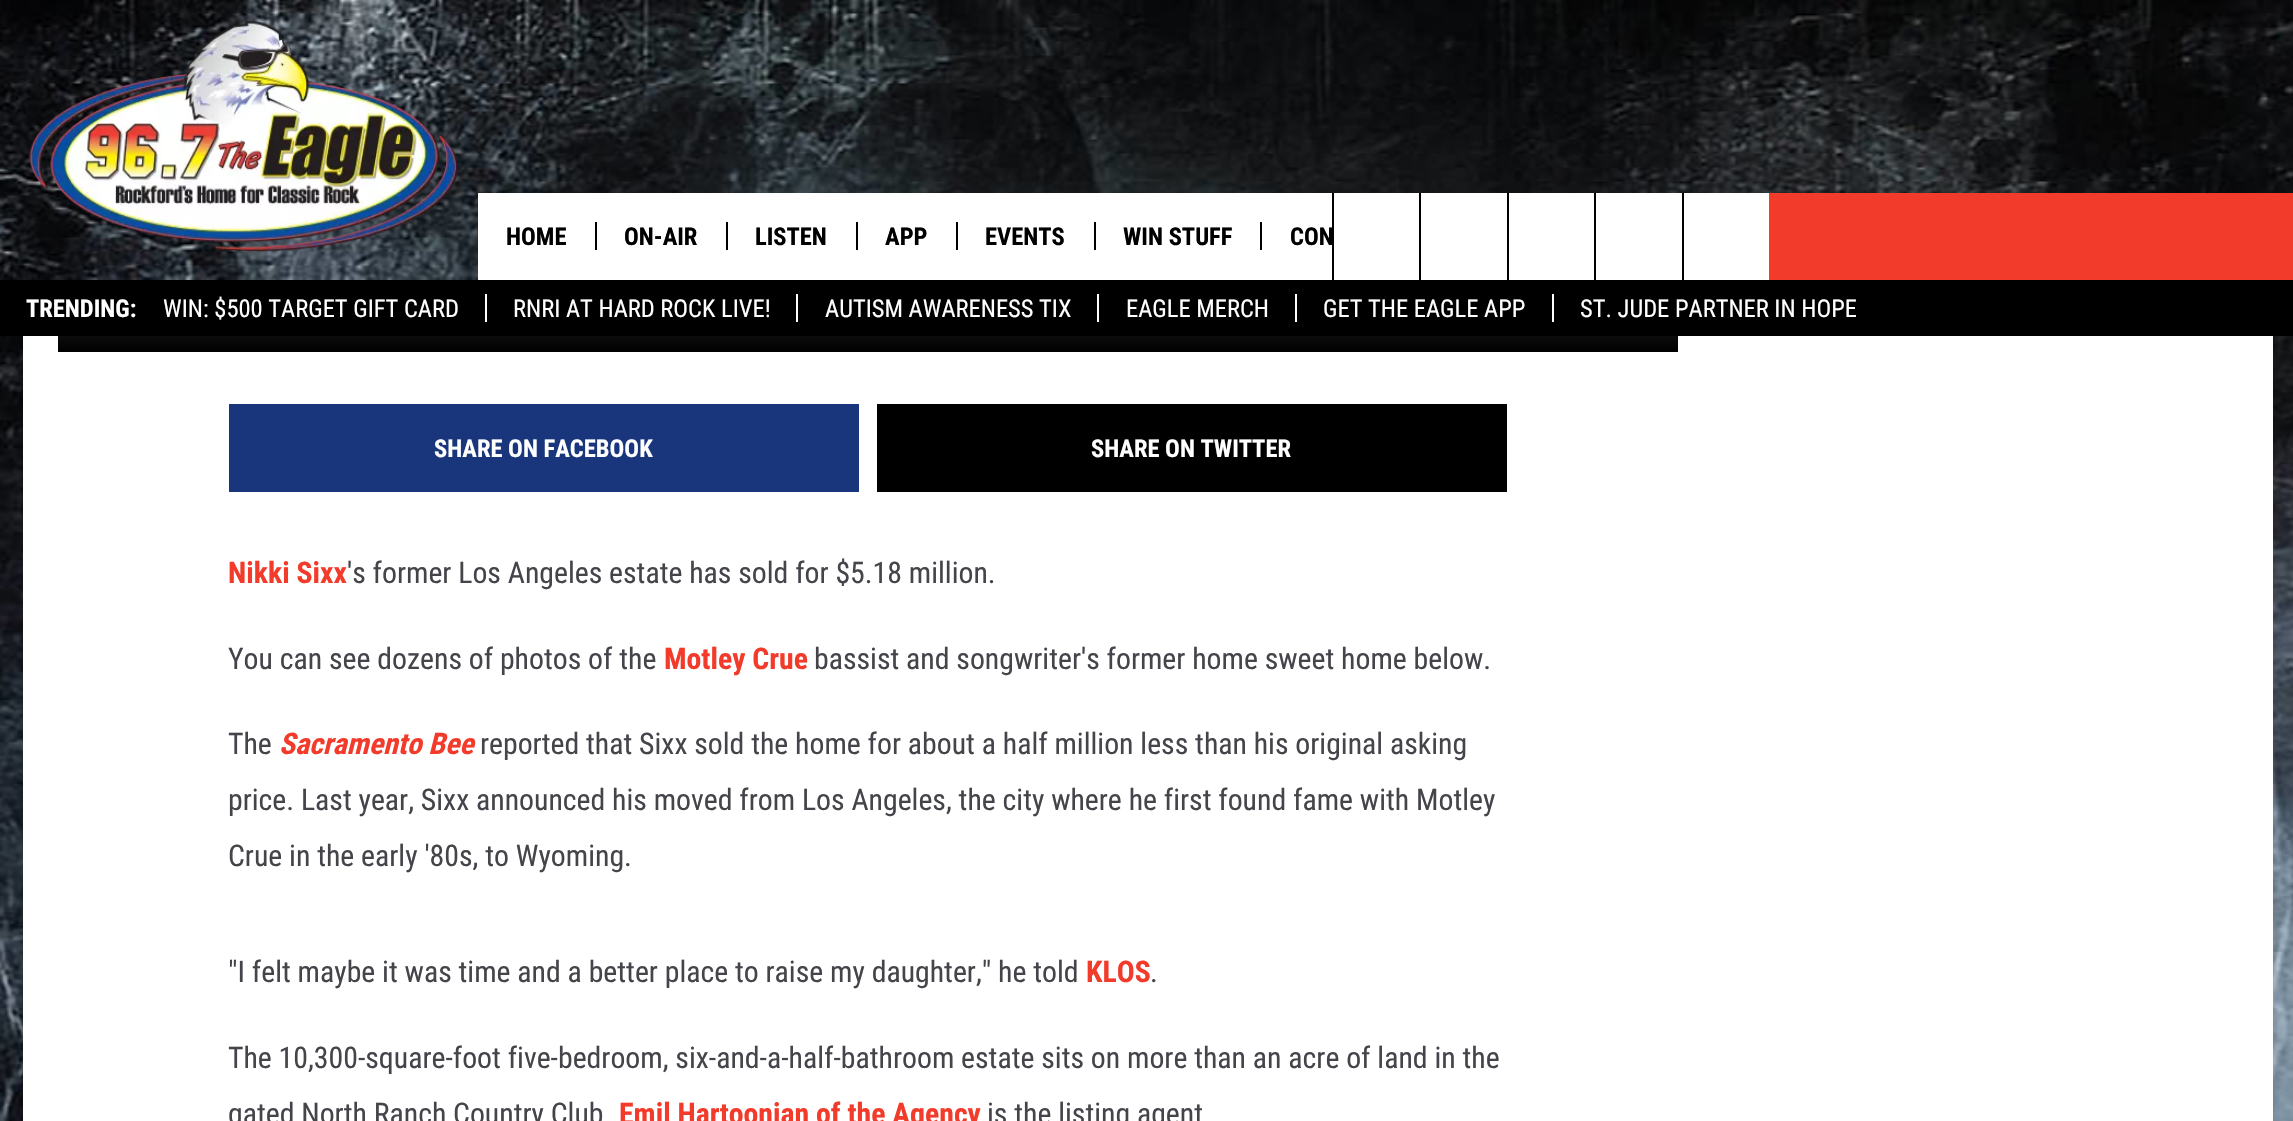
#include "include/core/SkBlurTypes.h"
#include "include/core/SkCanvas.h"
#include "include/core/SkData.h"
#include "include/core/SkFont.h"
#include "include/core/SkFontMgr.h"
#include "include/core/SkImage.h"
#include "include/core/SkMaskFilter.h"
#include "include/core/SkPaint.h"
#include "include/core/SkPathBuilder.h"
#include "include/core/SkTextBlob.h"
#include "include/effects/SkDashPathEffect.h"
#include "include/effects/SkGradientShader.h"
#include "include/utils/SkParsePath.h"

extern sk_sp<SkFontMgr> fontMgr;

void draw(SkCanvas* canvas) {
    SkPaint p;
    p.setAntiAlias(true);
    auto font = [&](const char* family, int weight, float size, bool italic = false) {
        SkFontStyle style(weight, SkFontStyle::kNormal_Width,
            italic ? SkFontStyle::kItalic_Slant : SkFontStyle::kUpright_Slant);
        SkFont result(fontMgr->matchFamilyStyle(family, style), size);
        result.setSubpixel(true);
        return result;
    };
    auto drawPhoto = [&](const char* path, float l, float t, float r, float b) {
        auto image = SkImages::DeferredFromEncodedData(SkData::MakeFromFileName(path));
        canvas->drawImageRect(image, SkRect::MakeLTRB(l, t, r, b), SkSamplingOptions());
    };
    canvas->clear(0xFFFFFFFF);
    drawPhoto("media/1.png", 0, 336, 2293, 1121);
    drawPhoto("media/2.png", 0, 0, 2293, 280);
    drawPhoto("media/3.png", 29, 21, 458, 252);
    p.setColor(0xFFFFFFFF);
    canvas->drawRect(SkRect::MakeLTRB(478, 193, 1332, 280), p);
    auto font1 = font("Roboto Condensed", 700, 24.5f);
    p.setColor(0xFF000000);
    canvas->drawString("HOME", 506, 245, font1, p);
    canvas->drawRect(SkRect::MakeLTRB(595, 222, 597, 250), p);
    canvas->drawString("ON-AIR", 624, 245, font1, p);
    canvas->drawRect(SkRect::MakeLTRB(726, 222, 728, 250), p);
    canvas->drawString("LISTEN", 755, 245, font1, p);
    canvas->drawRect(SkRect::MakeLTRB(856, 222, 858, 250), p);
    canvas->drawString("APP", 885, 245, font1, p);
    canvas->drawRect(SkRect::MakeLTRB(956, 222, 958, 250), p);
    canvas->drawString("EVENTS", 985, 245, font1, p);
    canvas->drawRect(SkRect::MakeLTRB(1094, 222, 1096, 250), p);
    canvas->drawString("WIN STUFF", 1123, 245, font1, p);
    canvas->drawRect(SkRect::MakeLTRB(1260, 222, 1262, 250), p);
    canvas->drawString("CON", 1290, 245, font1, p);
    {
        const struct { float l, t, r, b; SkColor color; } items[] = {
            {1334, 193, 1419, 280, 0xFFFFFFFF},
            {1332, 193, 1334, 280, 0xFF000000},
            {1421, 193, 1769, 280, 0xFFFFFFFF},
            {1419, 193, 1421, 280, 0xFF000000},
            {1507, 193, 1509, 280, 0xFF000000},
            {1594, 193, 1596, 280, 0xFF000000},
            {1682, 193, 1684, 280, 0xFF000000},
            {1769, 193, 2293, 280, 0xFFF23B2A},
            {0, 280, 2293, 336, 0xFF000000},
        };
        for (auto [l, t, r, b, color] : items) {
            p.setColor(color);
            canvas->drawRect(SkRect::MakeLTRB(l, t, r, b), p);
        }
    }
    p.setColor(0xFFFFFFFF);
    canvas->drawString("TRENDING:", 26, 317, font1, p);
    auto font2 = font("Roboto Condensed", 400, 24.5f);
    canvas->drawString("WIN: $500 TARGET GIFT CARD", 163, 317, font2, p);
    canvas->drawString("RNRI AT HARD ROCK LIVE!", 513, 317, font2, p);
    canvas->drawRect(SkRect::MakeLTRB(485, 294, 487, 322), p);
    canvas->drawString("AUTISM AWARENESS TIX", 825, 317, font2, p);
    canvas->drawRect(SkRect::MakeLTRB(796, 294, 798, 322), p);
    canvas->drawString("EAGLE MERCH", 1126, 317, font2, p);
    canvas->drawRect(SkRect::MakeLTRB(1097, 294, 1099, 322), p);
    canvas->drawString("GET THE EAGLE APP", 1323, 317, font2, p);
    canvas->drawRect(SkRect::MakeLTRB(1295, 294, 1297, 322), p);
    canvas->drawString("ST. JUDE PARTNER IN HOPE", 1580, 317, font2, p);
    canvas->drawRect(SkRect::MakeLTRB(1552, 294, 1554, 322), p);
    canvas->drawRect(SkRect::MakeLTRB(23, 336, 2273, 1121), p);
    {
        const SkColor colors[] = {0xFFFFFFFF, 0xFFF7F6F7};
        const float stops[] = {0.4f, 1};
        p.setShader(SkGradientShader::MakeRadial({868, -136}, 974, colors, stops, 2, SkTileMode::kClamp));
        p.setAlpha(255);
    }
    canvas->drawRect(SkRect::MakeLTRB(58, 336, 1678, 350), p);
    {
        const SkColor colors[] = {0x00000000, 0xFF000000};
        const float stops[] = {0, 1};
        const SkPoint ends[] = {{868, 12}, {868, 352}};
        p.setShader(SkGradientShader::MakeLinear(ends, colors, stops, 2, SkTileMode::kClamp));
        p.setAlpha(255);
    }
    canvas->drawRect(SkRect::MakeLTRB(58, 336, 1678, 352), p);
    p.setShader(nullptr);
    p.setColor(0xFF19367C);
    canvas->drawRect(SkRect::MakeLTRB(229, 404, 859, 492), p);
    p.setColor(0xFFFFFFFF);
    canvas->drawString("SHARE ON FACEBOOK", 434, 457, font1, p);
    p.setColor(0xFF000000);
    canvas->drawRect(SkRect::MakeLTRB(877, 404, 1507, 492), p);
    p.setColor(0xFFFFFFFF);
    canvas->drawString("SHARE ON TWITTER", 1091, 457, font1, p);
    auto font3 = font("Roboto Condensed", 700, 29.75f);
    p.setColor(0xFFF23B2A);
    canvas->drawString("Nikki Sixx", 228, 583, font3, p);
    auto font4 = font("Roboto Condensed", 400, 29.75f);
    p.setColor(0xFF45444A);
    canvas->drawString("'s former Los Angeles estate has sold for $5.18 million.", 347, 583, font4, p);
    canvas->drawString("You can see dozens of photos of the", 228, 669, font4, p);
    p.setColor(0xFFF23B2A);
    canvas->drawString("Motley Crue", 664, 669, font3, p);
    p.setColor(0xFF45444A);
    canvas->drawString("bassist and songwriter's former home sweet home below.", 814, 669, font4, p);
    canvas->drawString("The", 228, 754, font4, p);
    auto font5 = font("Roboto Condensed", 700, 29.75f, true);
    p.setColor(0xFFF23B2A);
    canvas->drawString("Sacramento Bee", 279, 754, font5, p);
    p.setColor(0xFF45444A);
    {
        const struct { const char* s; float x, y; } items[] = {
            {"reported that Sixx sold the home for about a half million less than his original asking", 480, 754},
            {"price. Last year, Sixx announced his moved from Los Angeles, the city where he first found fame with Motley", 228, 810},
            {"Crue in the early '80s, to Wyoming.", 228, 866},
            {"\"I felt maybe it was time and a better place to raise my daughter,\" he told", 228, 982},
        };
        for (auto [s, x, y] : items) {
            canvas->drawString(s, x, y, font4, p);
        }
    }
    p.setColor(0xFFF23B2A);
    canvas->drawString("KLOS", 1086, 982, font3, p);
    p.setColor(0xFF45444A);
    {
        const struct { const char* s; float x, y; } items[] = {
            {".", 1150, 982},
            {"The 10,300-square-foot five-bedroom, six-and-a-half-bathroom estate sits on more than an acre of land in the", 228, 1068},
            {"gated North Ranch Country Club", 228, 1124},
        };
        for (auto [s, x, y] : items) {
            canvas->drawString(s, x, y, font4, p);
        }
    }
    p.setColor(0xFFF23B2A);
    canvas->drawString("Emil Hartoonian of the Agency", 619, 1124, font3, p);
    p.setColor(0xFF45444A);
    canvas->drawString("is the listing agent", 987, 1124, font4, p);
}
